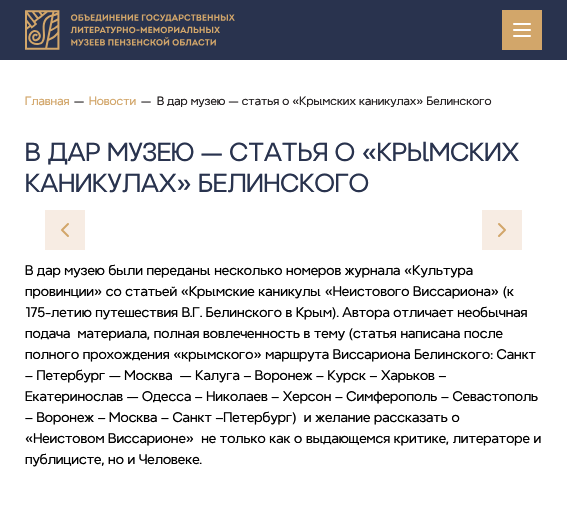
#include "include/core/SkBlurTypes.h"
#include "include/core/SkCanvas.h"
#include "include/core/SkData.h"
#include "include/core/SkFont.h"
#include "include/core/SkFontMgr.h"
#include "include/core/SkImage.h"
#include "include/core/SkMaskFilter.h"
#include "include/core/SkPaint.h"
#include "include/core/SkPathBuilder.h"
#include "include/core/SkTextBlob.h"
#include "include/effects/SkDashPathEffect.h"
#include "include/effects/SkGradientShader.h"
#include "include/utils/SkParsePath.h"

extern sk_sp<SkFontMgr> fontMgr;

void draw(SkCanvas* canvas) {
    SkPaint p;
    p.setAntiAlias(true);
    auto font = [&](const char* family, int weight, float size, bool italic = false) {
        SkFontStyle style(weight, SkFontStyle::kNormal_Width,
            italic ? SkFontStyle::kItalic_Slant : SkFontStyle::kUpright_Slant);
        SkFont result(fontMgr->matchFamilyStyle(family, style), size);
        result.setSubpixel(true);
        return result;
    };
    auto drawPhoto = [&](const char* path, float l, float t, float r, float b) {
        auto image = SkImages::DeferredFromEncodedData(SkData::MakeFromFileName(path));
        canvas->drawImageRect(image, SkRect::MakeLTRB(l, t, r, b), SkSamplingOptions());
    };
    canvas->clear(0xFFFFFFFF);
    p.setColor(0xFF29334E);
    canvas->drawRect(SkRect::MakeLTRB(0, 0, 567, 60), p);
    drawPhoto("media/1.png", 25, 10, 235, 50);
    p.setColor(0xFFD2A66A);
    canvas->drawRect(SkRect::MakeLTRB(502, 10, 542, 50), p);
    drawPhoto("media/2.png", 513, 23, 531, 37);
    auto font1 = font("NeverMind", 400, 12);
    canvas->drawString("Главная", 25, 105, font1, p);
    p.setColor(0xFF231F20);
    canvas->drawString("—", 74, 105, font1, p);
    p.setColor(0xFFD2A66A);
    canvas->drawString("Новости", 89, 105, font1, p);
    p.setColor(0xFF231F20);
    canvas->drawString("—", 141, 105, font1, p);
    canvas->drawString("В дар музею — статья о «Крымских каникулах» Белинского", 157, 105, font1, p);
    auto font2 = font("NeverMind", 400, 26);
    p.setColor(0xFF29334E);
    canvas->drawString("В ДАР МУЗЕЮ — СТАТЬЯ О «КРЫМСКИХ", 25, 161, font2, p);
    canvas->drawString("КАНИКУЛАХ» БЕЛИНСКОГО", 25, 192, font2, p);
    p.setColor(0xFFF7ECE3);
    canvas->drawRect(SkRect::MakeLTRB(45, 210, 85, 250), p);
    p.setStyle(SkPaint::kStroke_Style);
    p.setStrokeWidth(2);
    p.setStrokeCap(SkPaint::kRound_Cap);
    p.setStrokeJoin(SkPaint::kRound_Join);
    p.setColor(0xFFD2A66A);
    canvas->drawPath(SkPathBuilder().moveTo(68, 236).lineTo(62, 230).lineTo(68, 224).detach(), p);
    p.setStyle(SkPaint::kFill_Style);
    p.setColor(0xFFF7ECE3);
    canvas->drawRect(SkRect::MakeLTRB(482, 210, 522, 250), p);
    p.setStyle(SkPaint::kStroke_Style);
    p.setColor(0xFFD2A66A);
    canvas->drawPath(SkPathBuilder().moveTo(499, 236).lineTo(505, 230).lineTo(499, 224).detach(), p);
    auto font3 = font("NeverMind", 400, 14);
    p.setStyle(SkPaint::kFill_Style);
    p.setColor(0xFF000000);
    {
        const struct { const char* s; float x, y; } items[] = {
            {"В дар музею были переданы несколько номеров журнала «Культура", 25, 275},
            {"провинции» со статьей «Крымские каникулы «Неистового Виссариона» (к", 25, 296},
            {"175-летию путешествия В.Г. Белинского в Крым). Автора отличает необычная", 25, 317},
            {"подача  материала, полная вовлеченность в тему (статья написана после", 25, 338},
            {"полного прохождения «крымского» маршрута Виссариона Белинского: Санкт", 25, 359},
            {"– Петербург — Москва  — Калуга – Воронеж – Курск – Харьков –", 25, 380},
            {"Екатеринослав — Одесса – Николаев – Херсон – Симферополь – Севастополь", 25, 401},
            {"– Воронеж – Москва – Санкт –Петербург)  и желание рассказать о", 25, 422},
            {"«Неистовом Виссарионе»  не только как о выдающемся критике, литераторе и", 25, 443},
            {"публицисте, но и Человеке.", 25, 464},
        };
        for (auto [s, x, y] : items) {
            canvas->drawString(s, x, y, font3, p);
        }
    }
}
